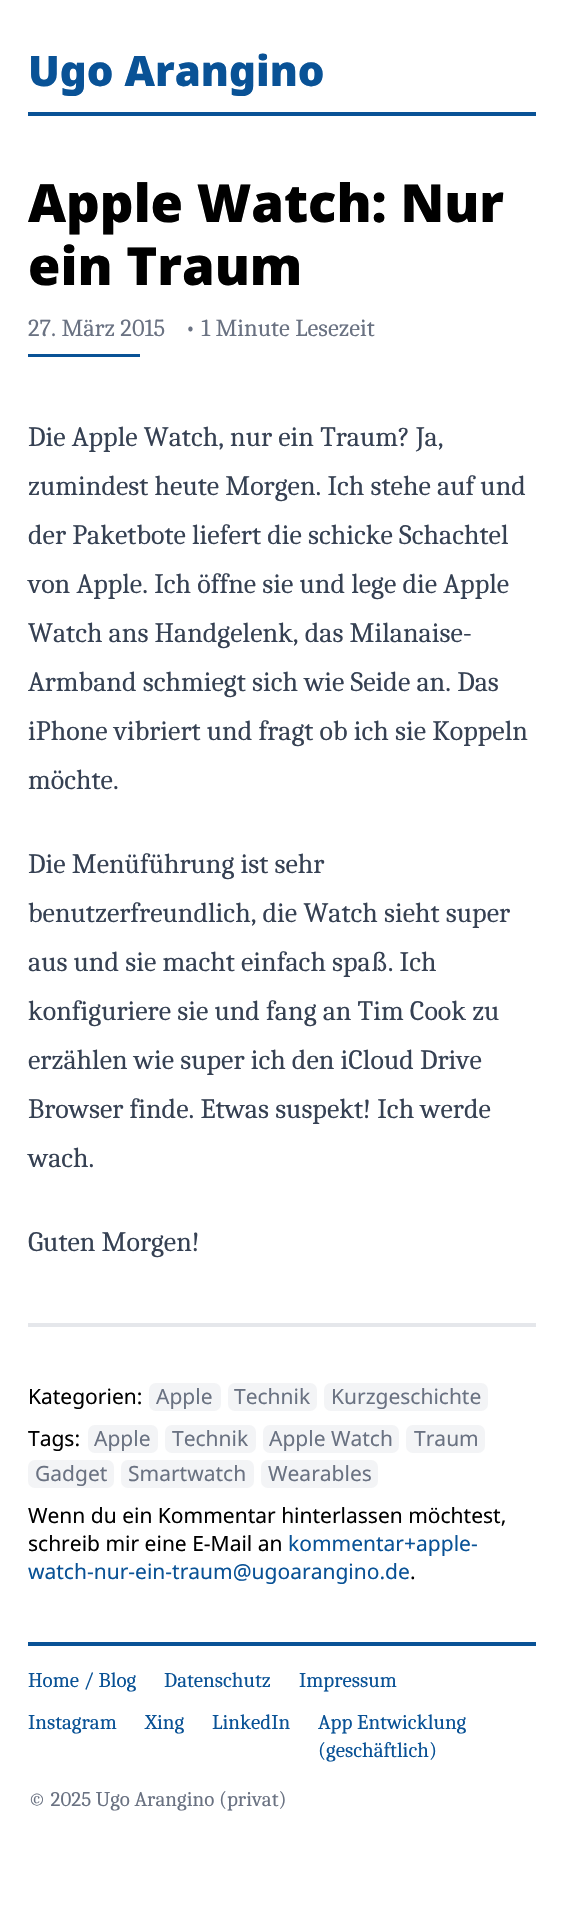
#include "include/core/SkBlurTypes.h"
#include "include/core/SkCanvas.h"
#include "include/core/SkData.h"
#include "include/core/SkFont.h"
#include "include/core/SkFontMgr.h"
#include "include/core/SkImage.h"
#include "include/core/SkMaskFilter.h"
#include "include/core/SkPaint.h"
#include "include/core/SkPathBuilder.h"
#include "include/core/SkTextBlob.h"
#include "include/effects/SkDashPathEffect.h"
#include "include/effects/SkGradientShader.h"
#include "include/utils/SkParsePath.h"

extern sk_sp<SkFontMgr> fontMgr;

void draw(SkCanvas* canvas) {
    SkPaint p;
    p.setAntiAlias(true);
    auto font = [&](const char* family, int weight, float size, bool italic = false) {
        SkFontStyle style(weight, SkFontStyle::kNormal_Width,
            italic ? SkFontStyle::kItalic_Slant : SkFontStyle::kUpright_Slant);
        SkFont result(fontMgr->matchFamilyStyle(family, style), size);
        result.setSubpixel(true);
        return result;
    };
    canvas->clear(0xFFFFFFFF);
    p.setColor(0xFF095296);
    canvas->drawRect(SkRect::MakeLTRB(28, 112, 536, 116), p);
    auto font1 = font("Noto Sans", 900, 42);
    canvas->drawString("Ugo Arangino", 28, 86, font1, p);
    auto font2 = font("Noto Sans", 900, 52.5f);
    p.setColor(0xFF000000);
    canvas->drawString("Apple Watch: Nur", 28, 222, font2, p);
    canvas->drawString("ein Traum", 28, 285, font2, p);
    auto font3 = font("Caladea", 400, 24.5f);
    p.setColor(0xFF6A7282);
    canvas->drawString("27. März 2015", 28, 336, font3, p);
    canvas->drawString("• 1 Minute Lesezeit", 185, 336, font3, p);
    p.setColor(0xFF095296);
    canvas->drawRect(SkRect::MakeLTRB(28, 354, 140, 357), p);
    auto font4 = font("Caladea", 400, 28);
    p.setColor(0xFF364153);
    {
        const struct { const char* s; float x, y; } items[] = {
            {"Die Apple Watch, nur ein Traum? Ja,", 28, 446},
            {"zumindest heute Morgen. Ich stehe auf und", 28, 495},
            {"der Paketbote liefert die schicke Schachtel", 28, 544},
            {"von Apple. Ich öffne sie und lege die Apple", 28, 593},
            {"Watch ans Handgelenk, das Milanaise-", 28, 642},
            {"Armband schmiegt sich wie Seide an. Das", 28, 691},
            {"iPhone vibriert und fragt ob ich sie Koppeln", 28, 740},
            {"möchte.", 28, 789},
            {"Die Menüführung ist sehr", 28, 873},
            {"benutzerfreundlich, die Watch sieht super", 28, 922},
            {"aus und sie macht einfach spaß. Ich", 28, 971},
            {"konfiguriere sie und fang an Tim Cook zu", 28, 1020},
            {"erzählen wie super ich den iCloud Drive", 28, 1069},
            {"Browser finde. Etwas suspekt! Ich werde", 28, 1118},
            {"wach.", 28, 1167},
            {"Guten Morgen!", 28, 1251},
        };
        for (auto [s, x, y] : items) {
            canvas->drawString(s, x, y, font4, p);
        }
    }
    p.setColor(0xFFE5E7EB);
    canvas->drawRect(SkRect::MakeLTRB(28, 1323, 536, 1327), p);
    auto font5 = font("Noto Sans", 400, 21);
    p.setColor(0xFF000000);
    canvas->drawString("Kategorien:", 28, 1404, font5, p);
    p.setColor(0xFFF3F4F6);
    canvas->drawRoundRect(SkRect::MakeLTRB(149, 1383, 221, 1411), 7, 7, p);
    p.setColor(0xFF6A7282);
    canvas->drawString("Apple", 156, 1404, font5, p);
    p.setColor(0xFFF3F4F6);
    canvas->drawRoundRect(SkRect::MakeLTRB(228, 1383, 317, 1411), 7, 7, p);
    p.setColor(0xFF6A7282);
    canvas->drawString("Technik", 234, 1404, font5, p);
    p.setColor(0xFFF3F4F6);
    canvas->drawRoundRect(SkRect::MakeLTRB(324, 1383, 488, 1411), 7, 7, p);
    p.setColor(0xFF6A7282);
    canvas->drawString("Kurzgeschichte", 331, 1404, font5, p);
    p.setColor(0xFF000000);
    canvas->drawString("Tags:", 28, 1446, font5, p);
    p.setColor(0xFFF3F4F6);
    canvas->drawRoundRect(SkRect::MakeLTRB(88, 1425, 158, 1453), 7, 7, p);
    p.setColor(0xFF6A7282);
    canvas->drawString("Apple", 94, 1446, font5, p);
    p.setColor(0xFFF3F4F6);
    canvas->drawRoundRect(SkRect::MakeLTRB(165, 1425, 256, 1453), 7, 7, p);
    p.setColor(0xFF6A7282);
    canvas->drawString("Technik", 172, 1446, font5, p);
    p.setColor(0xFFF3F4F6);
    canvas->drawRoundRect(SkRect::MakeLTRB(263, 1425, 399, 1453), 7, 7, p);
    p.setColor(0xFF6A7282);
    canvas->drawString("Apple Watch", 269, 1446, font5, p);
    p.setColor(0xFFF3F4F6);
    canvas->drawRoundRect(SkRect::MakeLTRB(406, 1425, 485, 1453), 7, 7, p);
    p.setColor(0xFF6A7282);
    canvas->drawString("Traum", 414, 1446, font5, p);
    p.setColor(0xFFF3F4F6);
    canvas->drawRoundRect(SkRect::MakeLTRB(28, 1460, 114, 1488), 7, 7, p);
    p.setColor(0xFF6A7282);
    canvas->drawString("Gadget", 35, 1481, font5, p);
    p.setColor(0xFFF3F4F6);
    canvas->drawRoundRect(SkRect::MakeLTRB(121, 1460, 254, 1488), 7, 7, p);
    p.setColor(0xFF6A7282);
    canvas->drawString("Smartwatch", 128, 1481, font5, p);
    p.setColor(0xFFF3F4F6);
    canvas->drawRoundRect(SkRect::MakeLTRB(261, 1460, 378, 1488), 7, 7, p);
    p.setColor(0xFF6A7282);
    canvas->drawString("Wearables", 268, 1481, font5, p);
    p.setColor(0xFF000000);
    canvas->drawString("Wenn du ein Kommentar hinterlassen möchtest,", 28, 1523, font5, p);
    canvas->drawString("schreib mir eine E-Mail an", 28, 1551, font5, p);
    p.setColor(0xFF095296);
    canvas->drawString("kommentar+apple-", 288, 1551, font5, p);
    canvas->drawString("watch-nur-ein-traum@ugoarangino.de", 28, 1579, font5, p);
    p.setColor(0xFF000000);
    canvas->drawString(".", 410, 1579, font5, p);
    p.setColor(0xFF095296);
    canvas->drawRect(SkRect::MakeLTRB(28, 1642, 536, 1646), p);
    auto font6 = font("Caladea", 400, 21);
    {
        const struct { const char* s; float x, y; } items[] = {
            {"Home / Blog", 28, 1687},
            {"Datenschutz", 164, 1687},
            {"Impressum", 299, 1687},
            {"Instagram", 28, 1729},
            {"Xing", 145, 1729},
            {"LinkedIn", 212, 1729},
            {"App Entwicklung", 318, 1729},
            {"(geschäftlich)", 318, 1757},
        };
        for (auto [s, x, y] : items) {
            canvas->drawString(s, x, y, font6, p);
        }
    }
    p.setColor(0xFF6A7282);
    canvas->drawString("© 2025 Ugo Arangino (privat)", 28, 1806, font6, p);
}
